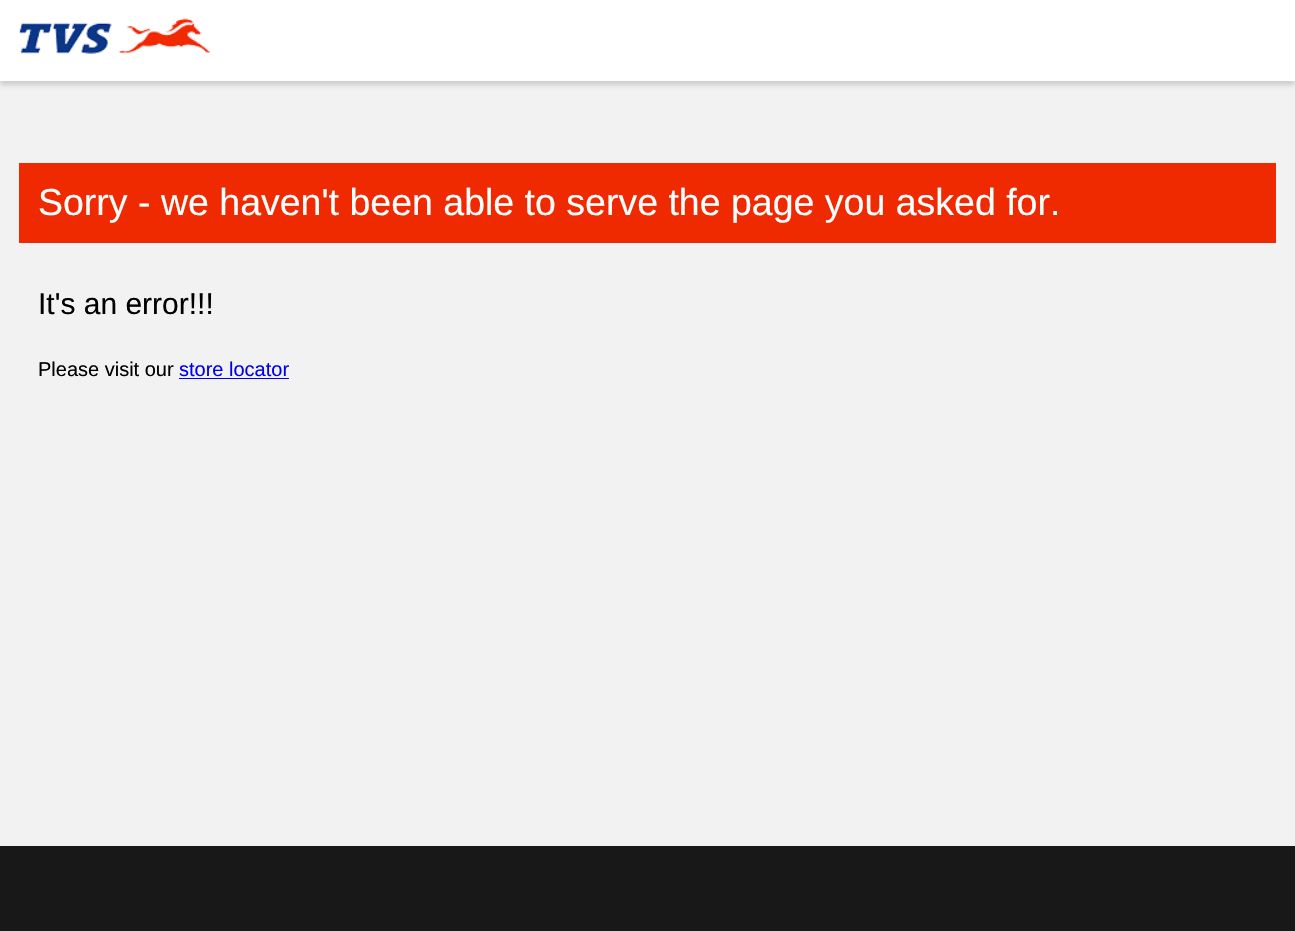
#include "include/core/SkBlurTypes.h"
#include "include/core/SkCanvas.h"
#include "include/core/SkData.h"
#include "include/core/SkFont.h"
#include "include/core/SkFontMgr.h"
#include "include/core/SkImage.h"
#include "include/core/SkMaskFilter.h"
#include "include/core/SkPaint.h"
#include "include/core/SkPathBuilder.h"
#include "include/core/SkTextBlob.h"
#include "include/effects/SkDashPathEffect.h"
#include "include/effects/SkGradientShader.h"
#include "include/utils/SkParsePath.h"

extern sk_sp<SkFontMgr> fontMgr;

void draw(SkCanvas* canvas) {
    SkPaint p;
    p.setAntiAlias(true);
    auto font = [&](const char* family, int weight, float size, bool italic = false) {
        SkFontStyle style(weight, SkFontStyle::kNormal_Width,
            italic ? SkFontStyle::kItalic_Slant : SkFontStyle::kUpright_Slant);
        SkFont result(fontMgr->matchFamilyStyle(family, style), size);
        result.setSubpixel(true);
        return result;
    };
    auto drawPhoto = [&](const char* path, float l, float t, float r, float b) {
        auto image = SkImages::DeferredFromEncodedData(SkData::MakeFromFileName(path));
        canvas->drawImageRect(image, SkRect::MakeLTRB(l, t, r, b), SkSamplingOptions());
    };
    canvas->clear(0xFFF2F2F2);
    p.setColor(0xFFCCCCCC);
    p.setMaskFilter(SkMaskFilter::MakeBlur(kNormal_SkBlurStyle, 2.5f));
    canvas->drawRect(SkRect::MakeLTRB(0, 4, 1295, 85), p);
    p.setMaskFilter(nullptr);
    p.setColor(0xFFFFFFFF);
    canvas->drawRect(SkRect::MakeLTRB(0, 0, 1295, 81), p);
    drawPhoto("media/1.png", 18, 18, 210, 54);
    p.setColor(0xFFF02A00);
    canvas->drawRect(SkRect::MakeLTRB(19, 163, 1276, 243), p);
    auto font1 = font("Liberation Sans", 400, 37.5f);
    p.setColor(0xFFFFFFFF);
    canvas->drawString("Sorry - we haven't been able to serve the page you asked for.", 38, 215, font1, p);
    auto font2 = font("Liberation Sans", 400, 30);
    p.setColor(0xFF000000);
    canvas->drawString("It's an error!!!", 38, 314, font2, p);
    auto font3 = font("Liberation Sans", 400, 20);
    canvas->drawString("Please visit our", 38, 376, font3, p);
    p.setColor(0xFF0000EE);
    canvas->drawString("store locator", 179, 376, font3, p);
    canvas->drawRect(SkRect::MakeLTRB(179, 378, 289, 379), p);
    p.setColor(0xFF181818);
    canvas->drawRect(SkRect::MakeLTRB(0, 846, 1295, 931), p);
}
